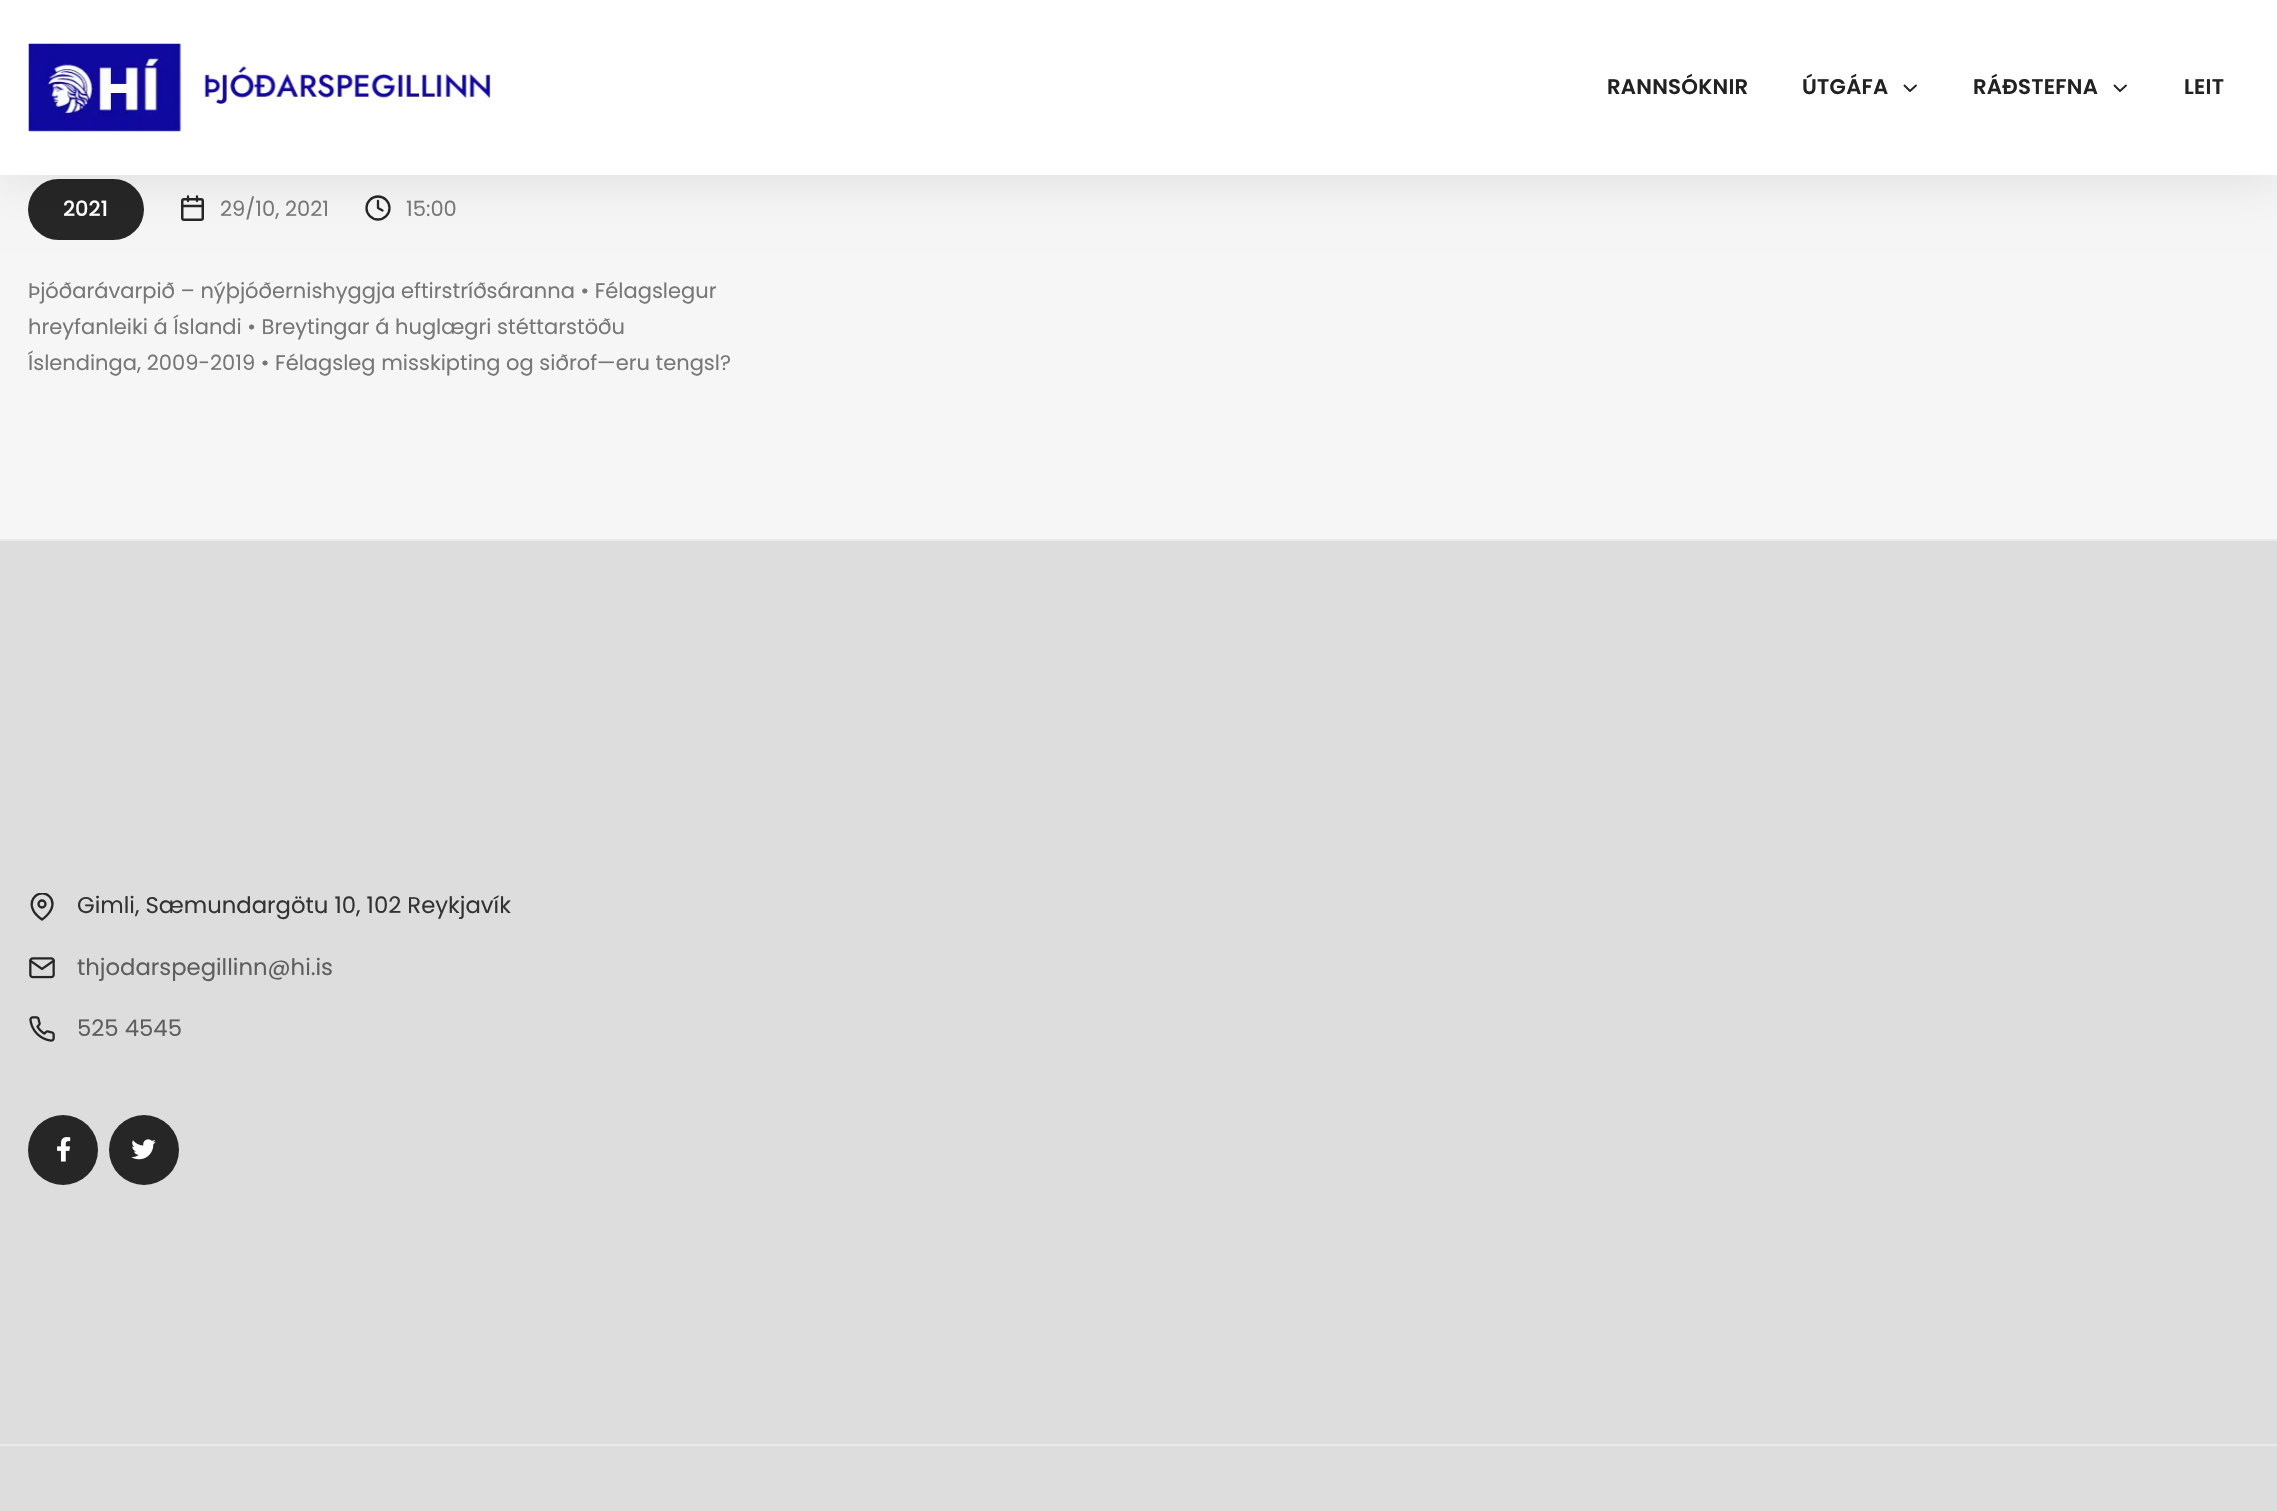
#include "include/core/SkBlurTypes.h"
#include "include/core/SkCanvas.h"
#include "include/core/SkData.h"
#include "include/core/SkFont.h"
#include "include/core/SkFontMgr.h"
#include "include/core/SkImage.h"
#include "include/core/SkMaskFilter.h"
#include "include/core/SkPaint.h"
#include "include/core/SkPathBuilder.h"
#include "include/core/SkTextBlob.h"
#include "include/effects/SkDashPathEffect.h"
#include "include/effects/SkGradientShader.h"
#include "include/utils/SkParsePath.h"

extern sk_sp<SkFontMgr> fontMgr;

void draw(SkCanvas* canvas) {
    SkPaint p;
    p.setAntiAlias(true);
    auto font = [&](const char* family, int weight, float size, bool italic = false) {
        SkFontStyle style(weight, SkFontStyle::kNormal_Width,
            italic ? SkFontStyle::kItalic_Slant : SkFontStyle::kUpright_Slant);
        SkFont result(fontMgr->matchFamilyStyle(family, style), size);
        result.setSubpixel(true);
        return result;
    };
    auto drawTracked = [&](const char* s, float x, float y, const SkFont& font, const SkPaint& ink, float letter, float word) {
        std::vector<SkGlyphID> glyphs(font.countText(s, strlen(s), SkTextEncoding::kUTF8));
        std::vector<float> xs(glyphs.size());
        font.textToGlyphs(s, strlen(s), SkTextEncoding::kUTF8, glyphs);
        font.getXPos(glyphs, xs, x);
        float extra = 0;
        for (size_t i = 0; i < glyphs.size(); i++) {
            xs[i] += extra;
            extra += letter + word * (glyphs[i] == font.unicharToGlyph(' '));
        }
        canvas->drawTextBlob(SkTextBlob::MakeFromPosHGlyphs(glyphs, xs, y, font), 0, 0, ink);
    };
    auto drawPhoto = [&](const char* path, float l, float t, float r, float b) {
        auto image = SkImages::DeferredFromEncodedData(SkData::MakeFromFileName(path));
        canvas->drawImageRect(image, SkRect::MakeLTRB(l, t, r, b), SkSamplingOptions());
    };
    canvas->clear(0xFFF6F6F6);
    p.setColor(0xFF262626);
    canvas->drawRoundRect(SkRect::MakeLTRB(28, 179, 144, 240), 30.5f, 30.5f, p);
    p.setStyle(SkPaint::kStroke_Style);
    p.setStrokeWidth(2.5f);
    canvas->drawRoundRect(SkRect::MakeLTRB(182.25f, 199.25f, 202.75f, 219.75f), 1.75f, 1.75f, p);
    p.setStrokeWidth(2.3f);
    p.setStrokeCap(SkPaint::kRound_Cap);
    p.setStrokeJoin(SkPaint::kRound_Join);
    canvas->drawPath(SkPathBuilder().moveTo(197, 196.5f).lineTo(197, 201).moveTo(188, 196.5f).lineTo(188, 201).moveTo(182, 206).lineTo(203, 206).detach(), p);
    p.setStrokeCap(SkPaint::kButt_Cap);
    p.setStrokeJoin(SkPaint::kMiter_Join);
    canvas->drawCircle(378, 208, 11.5f, p);
    p.setStrokeCap(SkPaint::kRound_Cap);
    p.setStrokeJoin(SkPaint::kRound_Join);
    canvas->drawPath(SkPathBuilder().moveTo(378, 201).lineTo(378, 208).lineTo(382.5f, 210.5f).detach(), p);
    p.setStyle(SkPaint::kFill_Style);
    p.setColor(0x1A000000);
    p.setMaskFilter(SkMaskFilter::MakeBlur(kNormal_SkBlurStyle, 26));
    canvas->drawRect(SkRect::MakeLTRB(0, 2, 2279, 177), p);
    p.setMaskFilter(nullptr);
    p.setColor(0xFFFFFFFF);
    canvas->drawRect(SkRect::MakeLTRB(0, 0, 2277, 175), p);
    drawPhoto("media/1.png", 28, 43, 491, 132);
    auto font1 = font("Poppins", 600, 21.25f);
    p.setColor(0xFF222222);
    drawTracked("RANNSÓKNIR", 1607, 94, font1, p, 0.25f, 0);
    drawTracked("ÚTGÁFA", 1802, 94, font1, p, 0.25f, 0);
    p.setStyle(SkPaint::kStroke_Style);
    p.setStrokeWidth(1.9f);
    canvas->drawPath(SkPathBuilder().moveTo(1904.5f, 85.5f).lineTo(1910, 91).lineTo(1916, 85.5f).detach(), p);
    p.setStyle(SkPaint::kFill_Style);
    drawTracked("RÁÐSTEFNA", 1973, 94, font1, p, 0.25f, 0);
    p.setStyle(SkPaint::kStroke_Style);
    canvas->drawPath(SkPathBuilder().moveTo(2114.5f, 85.5f).lineTo(2120, 91).lineTo(2126, 85.5f).detach(), p);
    p.setStyle(SkPaint::kFill_Style);
    drawTracked("LEIT", 2184, 94, font1, p, 0.25f, 0);
    auto font2 = font("Poppins", 500, 21);
    p.setColor(0xFFFFFFFF);
    canvas->drawString("2021", 63, 216, font2, p);
    auto font3 = font("Poppins", 400, 21);
    p.setColor(0xFF777777);
    {
        const struct { const char* s; float x, y; } items[] = {
            {"29/10, 2021", 220, 216},
            {"15:00", 406, 216},
            {"Þjóðarávarpið – nýþjóðernishyggja eftirstríðsáranna • Félagslegur", 28, 298},
            {"hreyfanleiki á Íslandi • Breytingar á huglægri stéttarstöðu", 28, 334},
            {"Íslendinga, 2009-2019 • Félagsleg misskipting og siðrof—eru tengsl?", 28, 370},
        };
        for (auto [s, x, y] : items) {
            canvas->drawString(s, x, y, font3, p);
        }
    }
    p.setColor(0xFFDDDDDD);
    canvas->drawRect(SkRect::MakeLTRB(0, 541, 2277, 1511), p);
    p.setColor(0xFFEAEAEA);
    canvas->drawRect(SkRect::MakeLTRB(0, 539, 2277, 541), p);
    canvas->save();
    canvas->clipRect(SkRect::MakeLTRB(28, 893, 56, 921));
    p.setStyle(SkPaint::kStroke_Style);
    p.setStrokeWidth(2.3f);
    p.setColor(0xFF262626);
    canvas->drawPath(SkPathBuilder().moveTo(52.5f, 904).cubicTo(52.5f, 912.5f, 42, 919.5f, 42, 919.5f).cubicTo(20, 904.5f, 38.5f, 886, 49.5f, 896.5f).cubicTo(51.5f, 898.5f, 52.5f, 901.5f, 52.5f, 904).close().detach(), p);
    canvas->restore();
    p.setStrokeCap(SkPaint::kButt_Cap);
    p.setStrokeJoin(SkPaint::kMiter_Join);
    canvas->drawCircle(42, 904, 3.5f, p);
    auto font4 = font("Poppins", 400, 22.75f);
    p.setStyle(SkPaint::kFill_Style);
    p.setColor(0xFF333333);
    canvas->drawString("Gimli, Sæmundargötu 10, 102 Reykjavík", 77, 913, font4, p);
    drawPhoto("media/2.png", 29, 957, 55, 979);
    p.setColor(0xFF5E5E5E);
    canvas->drawString("thjodarspegillinn@hi.is", 77, 975, font4, p);
    drawPhoto("media/3.png", 29, 1016, 55, 1042);
    canvas->drawString("525 4545", 77, 1036, font4, p);
    p.setColor(0xFF262626);
    canvas->drawCircle(63, 1150, 35, p);
    drawPhoto("media/4.png", 57, 1137, 71, 1162);
    canvas->drawCircle(144, 1150, 35, p);
    drawPhoto("media/5.png", 131, 1139, 156, 1160);
    p.setColor(0xFFEAEAEA);
    canvas->drawRect(SkRect::MakeLTRB(0, 1444, 2277, 1446), p);
}
